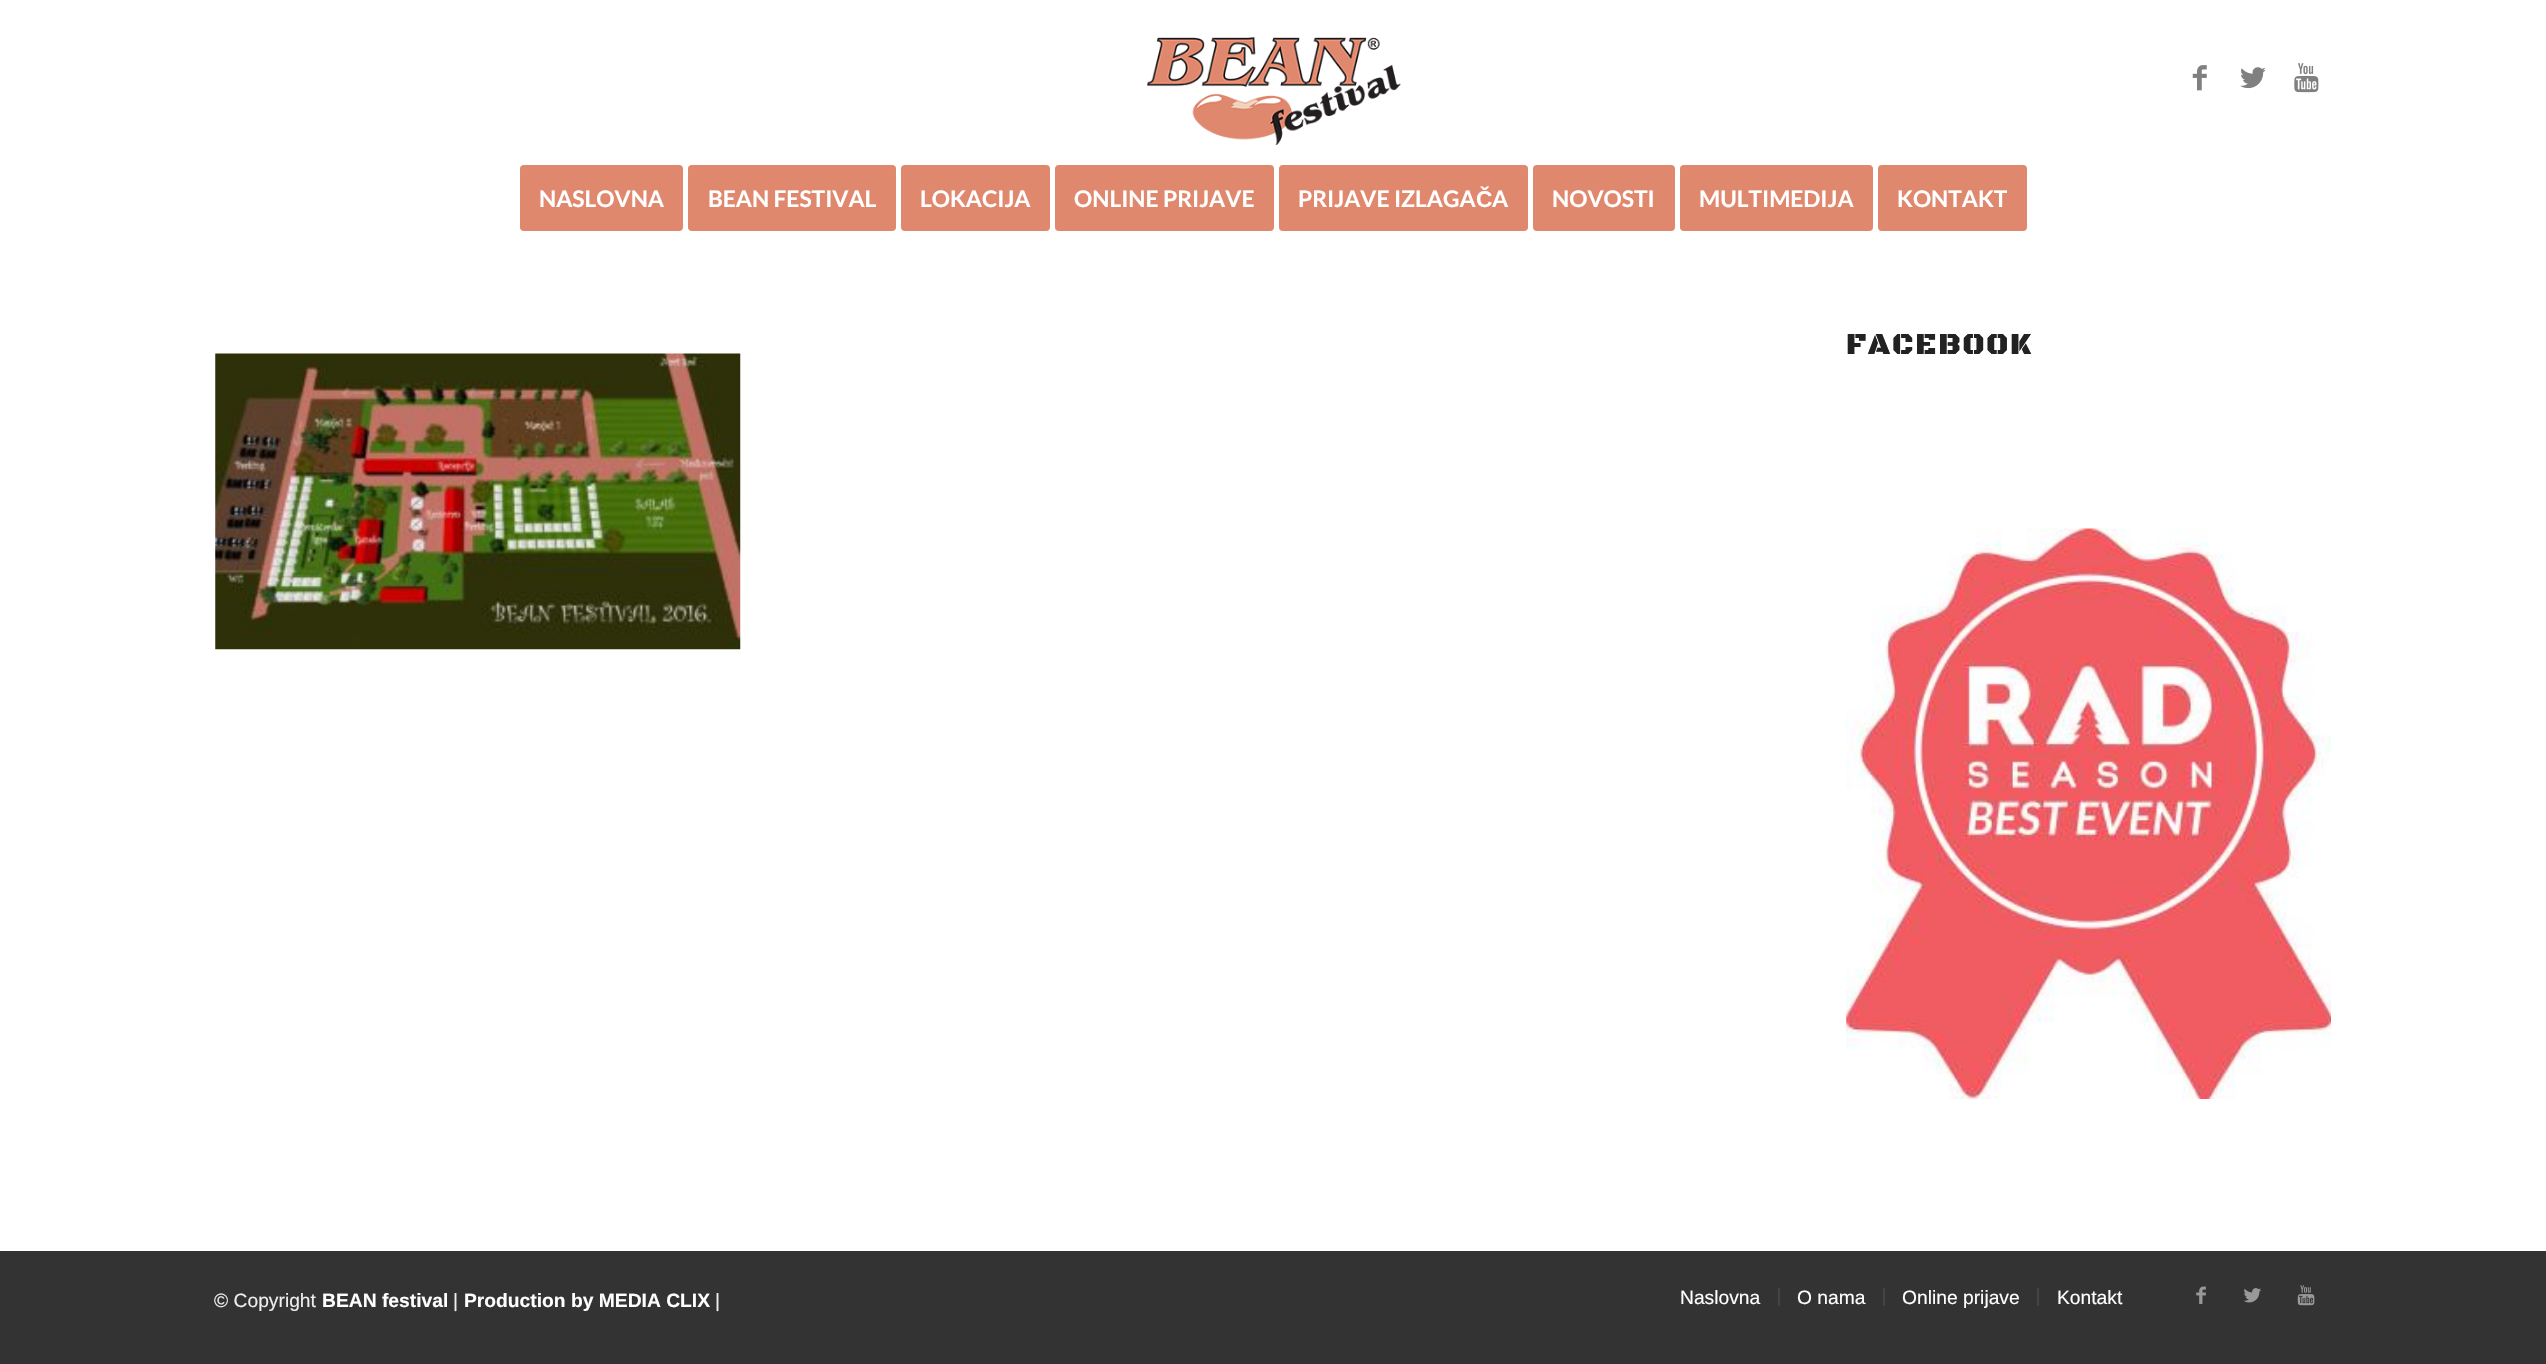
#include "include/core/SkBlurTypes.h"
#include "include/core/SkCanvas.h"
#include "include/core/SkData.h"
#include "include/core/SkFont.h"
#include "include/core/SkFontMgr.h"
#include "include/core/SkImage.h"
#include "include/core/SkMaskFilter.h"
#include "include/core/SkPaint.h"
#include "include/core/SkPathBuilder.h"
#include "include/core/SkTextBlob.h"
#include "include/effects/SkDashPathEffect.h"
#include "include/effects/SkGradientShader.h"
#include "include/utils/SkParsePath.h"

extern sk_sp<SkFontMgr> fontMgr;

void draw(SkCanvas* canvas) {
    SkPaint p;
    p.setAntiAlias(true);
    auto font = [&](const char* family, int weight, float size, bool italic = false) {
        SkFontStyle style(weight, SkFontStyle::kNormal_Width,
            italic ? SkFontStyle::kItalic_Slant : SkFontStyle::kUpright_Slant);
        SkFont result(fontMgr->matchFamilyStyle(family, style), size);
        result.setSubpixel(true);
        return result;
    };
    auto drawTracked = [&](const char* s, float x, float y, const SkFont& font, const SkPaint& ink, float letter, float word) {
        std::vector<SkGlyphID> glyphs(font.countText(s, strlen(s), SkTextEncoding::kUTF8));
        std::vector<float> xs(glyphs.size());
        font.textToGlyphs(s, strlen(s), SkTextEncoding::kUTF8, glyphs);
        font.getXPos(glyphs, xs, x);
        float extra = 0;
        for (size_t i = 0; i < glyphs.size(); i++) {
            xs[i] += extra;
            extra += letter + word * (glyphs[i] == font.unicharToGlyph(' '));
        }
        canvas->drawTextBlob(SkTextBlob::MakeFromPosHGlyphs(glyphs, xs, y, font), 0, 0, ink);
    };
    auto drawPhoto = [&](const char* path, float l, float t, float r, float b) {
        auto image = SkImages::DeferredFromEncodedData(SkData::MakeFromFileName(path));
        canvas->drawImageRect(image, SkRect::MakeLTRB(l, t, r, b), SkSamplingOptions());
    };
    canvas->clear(0xFF333333);
    p.setColor(0xFFFFFFFF);
    canvas->drawRect(SkRect::MakeLTRB(0, 0, 2546, 1251), p);
    drawPhoto("media/1.png", 1147, 37, 1401, 145);
    drawPhoto("media/2.png", 2192, 65, 2207, 91);
    drawPhoto("media/3.png", 2240, 67, 2266, 89);
    drawPhoto("media/4.png", 2294, 63, 2319, 93);
    p.setColor(0xFFDF886D);
    canvas->drawRoundRect(SkRect::MakeLTRB(522, 167, 681, 229), 2, 2, p);
    p.setStyle(SkPaint::kStroke_Style);
    p.setStrokeWidth(4);
    canvas->drawRoundRect(SkRect::MakeLTRB(522, 167, 681, 229), 2, 2, p);
    auto font1 = font("Lato", 700, 22.75f);
    p.setStyle(SkPaint::kFill_Style);
    p.setColor(0xFFFFFFFF);
    canvas->drawString("NASLOVNA", 539, 207, font1, p);
    p.setColor(0xFFDF886D);
    canvas->drawRoundRect(SkRect::MakeLTRB(690, 167, 894, 229), 2, 2, p);
    p.setStyle(SkPaint::kStroke_Style);
    canvas->drawRoundRect(SkRect::MakeLTRB(690, 167, 894, 229), 2, 2, p);
    p.setStyle(SkPaint::kFill_Style);
    p.setColor(0xFFFFFFFF);
    canvas->drawString("BEAN FESTIVAL", 708, 207, font1, p);
    p.setColor(0xFFDF886D);
    canvas->drawRoundRect(SkRect::MakeLTRB(903, 167, 1048, 229), 2, 2, p);
    p.setStyle(SkPaint::kStroke_Style);
    canvas->drawRoundRect(SkRect::MakeLTRB(903, 167, 1048, 229), 2, 2, p);
    p.setStyle(SkPaint::kFill_Style);
    p.setColor(0xFFFFFFFF);
    canvas->drawString("LOKACIJA", 920, 207, font1, p);
    p.setColor(0xFFDF886D);
    canvas->drawRoundRect(SkRect::MakeLTRB(1057, 167, 1272, 229), 2, 2, p);
    p.setStyle(SkPaint::kStroke_Style);
    canvas->drawRoundRect(SkRect::MakeLTRB(1057, 167, 1272, 229), 2, 2, p);
    p.setStyle(SkPaint::kFill_Style);
    p.setColor(0xFFFFFFFF);
    canvas->drawString("ONLINE PRIJAVE", 1074, 207, font1, p);
    p.setColor(0xFFDF886D);
    canvas->drawRoundRect(SkRect::MakeLTRB(1281, 167, 1526, 229), 2, 2, p);
    p.setStyle(SkPaint::kStroke_Style);
    canvas->drawRoundRect(SkRect::MakeLTRB(1281, 167, 1526, 229), 2, 2, p);
    p.setStyle(SkPaint::kFill_Style);
    p.setColor(0xFFFFFFFF);
    canvas->drawString("PRIJAVE IZLAGA", 1298, 207, font1, p);
    auto font2 = font("Liberation Sans", 700, 22.75f);
    canvas->drawString("Č", 1476, 207, font2, p);
    canvas->drawString("A", 1492, 207, font1, p);
    p.setColor(0xFFDF886D);
    canvas->drawRoundRect(SkRect::MakeLTRB(1535, 167, 1673, 229), 2, 2, p);
    p.setStyle(SkPaint::kStroke_Style);
    canvas->drawRoundRect(SkRect::MakeLTRB(1535, 167, 1673, 229), 2, 2, p);
    p.setStyle(SkPaint::kFill_Style);
    p.setColor(0xFFFFFFFF);
    canvas->drawString("NOVOSTI", 1552, 207, font1, p);
    p.setColor(0xFFDF886D);
    canvas->drawRoundRect(SkRect::MakeLTRB(1682, 167, 1871, 229), 2, 2, p);
    p.setStyle(SkPaint::kStroke_Style);
    canvas->drawRoundRect(SkRect::MakeLTRB(1682, 167, 1871, 229), 2, 2, p);
    p.setStyle(SkPaint::kFill_Style);
    p.setColor(0xFFFFFFFF);
    canvas->drawString("MULTIMEDIJA", 1699, 207, font1, p);
    p.setColor(0xFFDF886D);
    canvas->drawRoundRect(SkRect::MakeLTRB(1880, 167, 2025, 229), 2, 2, p);
    p.setStyle(SkPaint::kStroke_Style);
    canvas->drawRoundRect(SkRect::MakeLTRB(1880, 167, 2025, 229), 2, 2, p);
    p.setStyle(SkPaint::kFill_Style);
    p.setColor(0xFFFFFFFF);
    canvas->drawString("KONTAKT", 1897, 207, font1, p);
    auto font3 = font("Black Ops One", 900, 30.75f);
    p.setColor(0xFF222222);
    drawTracked("FACEBOOK", 1846, 354, font3, p, 1.75f, 0);
    drawPhoto("media/5.png", 1846, 528, 2331, 1099);
    drawPhoto("media/6.png", 215, 353, 741, 650);
    auto font4 = font("Liberation Sans", 400, 19.25f);
    p.setColor(0xFFEEEEEE);
    canvas->drawString("© Copyright", 214, 1307, font4, p);
    auto font5 = font("Liberation Sans", 700, 19.25f);
    p.setColor(0xFFFFFFFF);
    canvas->drawString("BEAN festival", 322, 1307, font5, p);
    p.setColor(0xFFEEEEEE);
    canvas->drawString("|", 453, 1307, font4, p);
    p.setColor(0xFFFFFFFF);
    canvas->drawString("Production by MEDIA CLIX", 464, 1307, font5, p);
    p.setColor(0xFFEEEEEE);
    canvas->drawString("|", 715, 1307, font4, p);
    p.setColor(0xFFFFFFFF);
    canvas->drawString("Naslovna", 1680, 1304, font4, p);
    p.setColor(0xFF444444);
    canvas->drawRect(SkRect::MakeLTRB(1778, 1288, 1780, 1306), p);
    p.setColor(0xFFFFFFFF);
    canvas->drawString("O nama", 1797, 1304, font4, p);
    p.setColor(0xFF444444);
    canvas->drawRect(SkRect::MakeLTRB(1883, 1288, 1885, 1306), p);
    p.setColor(0xFFFFFFFF);
    canvas->drawString("Online prijave", 1902, 1304, font4, p);
    p.setColor(0xFF444444);
    canvas->drawRect(SkRect::MakeLTRB(2037, 1288, 2039, 1306), p);
    p.setColor(0xFFFFFFFF);
    canvas->drawString("Kontakt", 2057, 1304, font4, p);
    drawPhoto("media/7.png", 2196, 1286, 2206, 1304);
    drawPhoto("media/8.png", 2243, 1288, 2261, 1303);
    drawPhoto("media/9.png", 2297, 1285, 2315, 1306);
}
